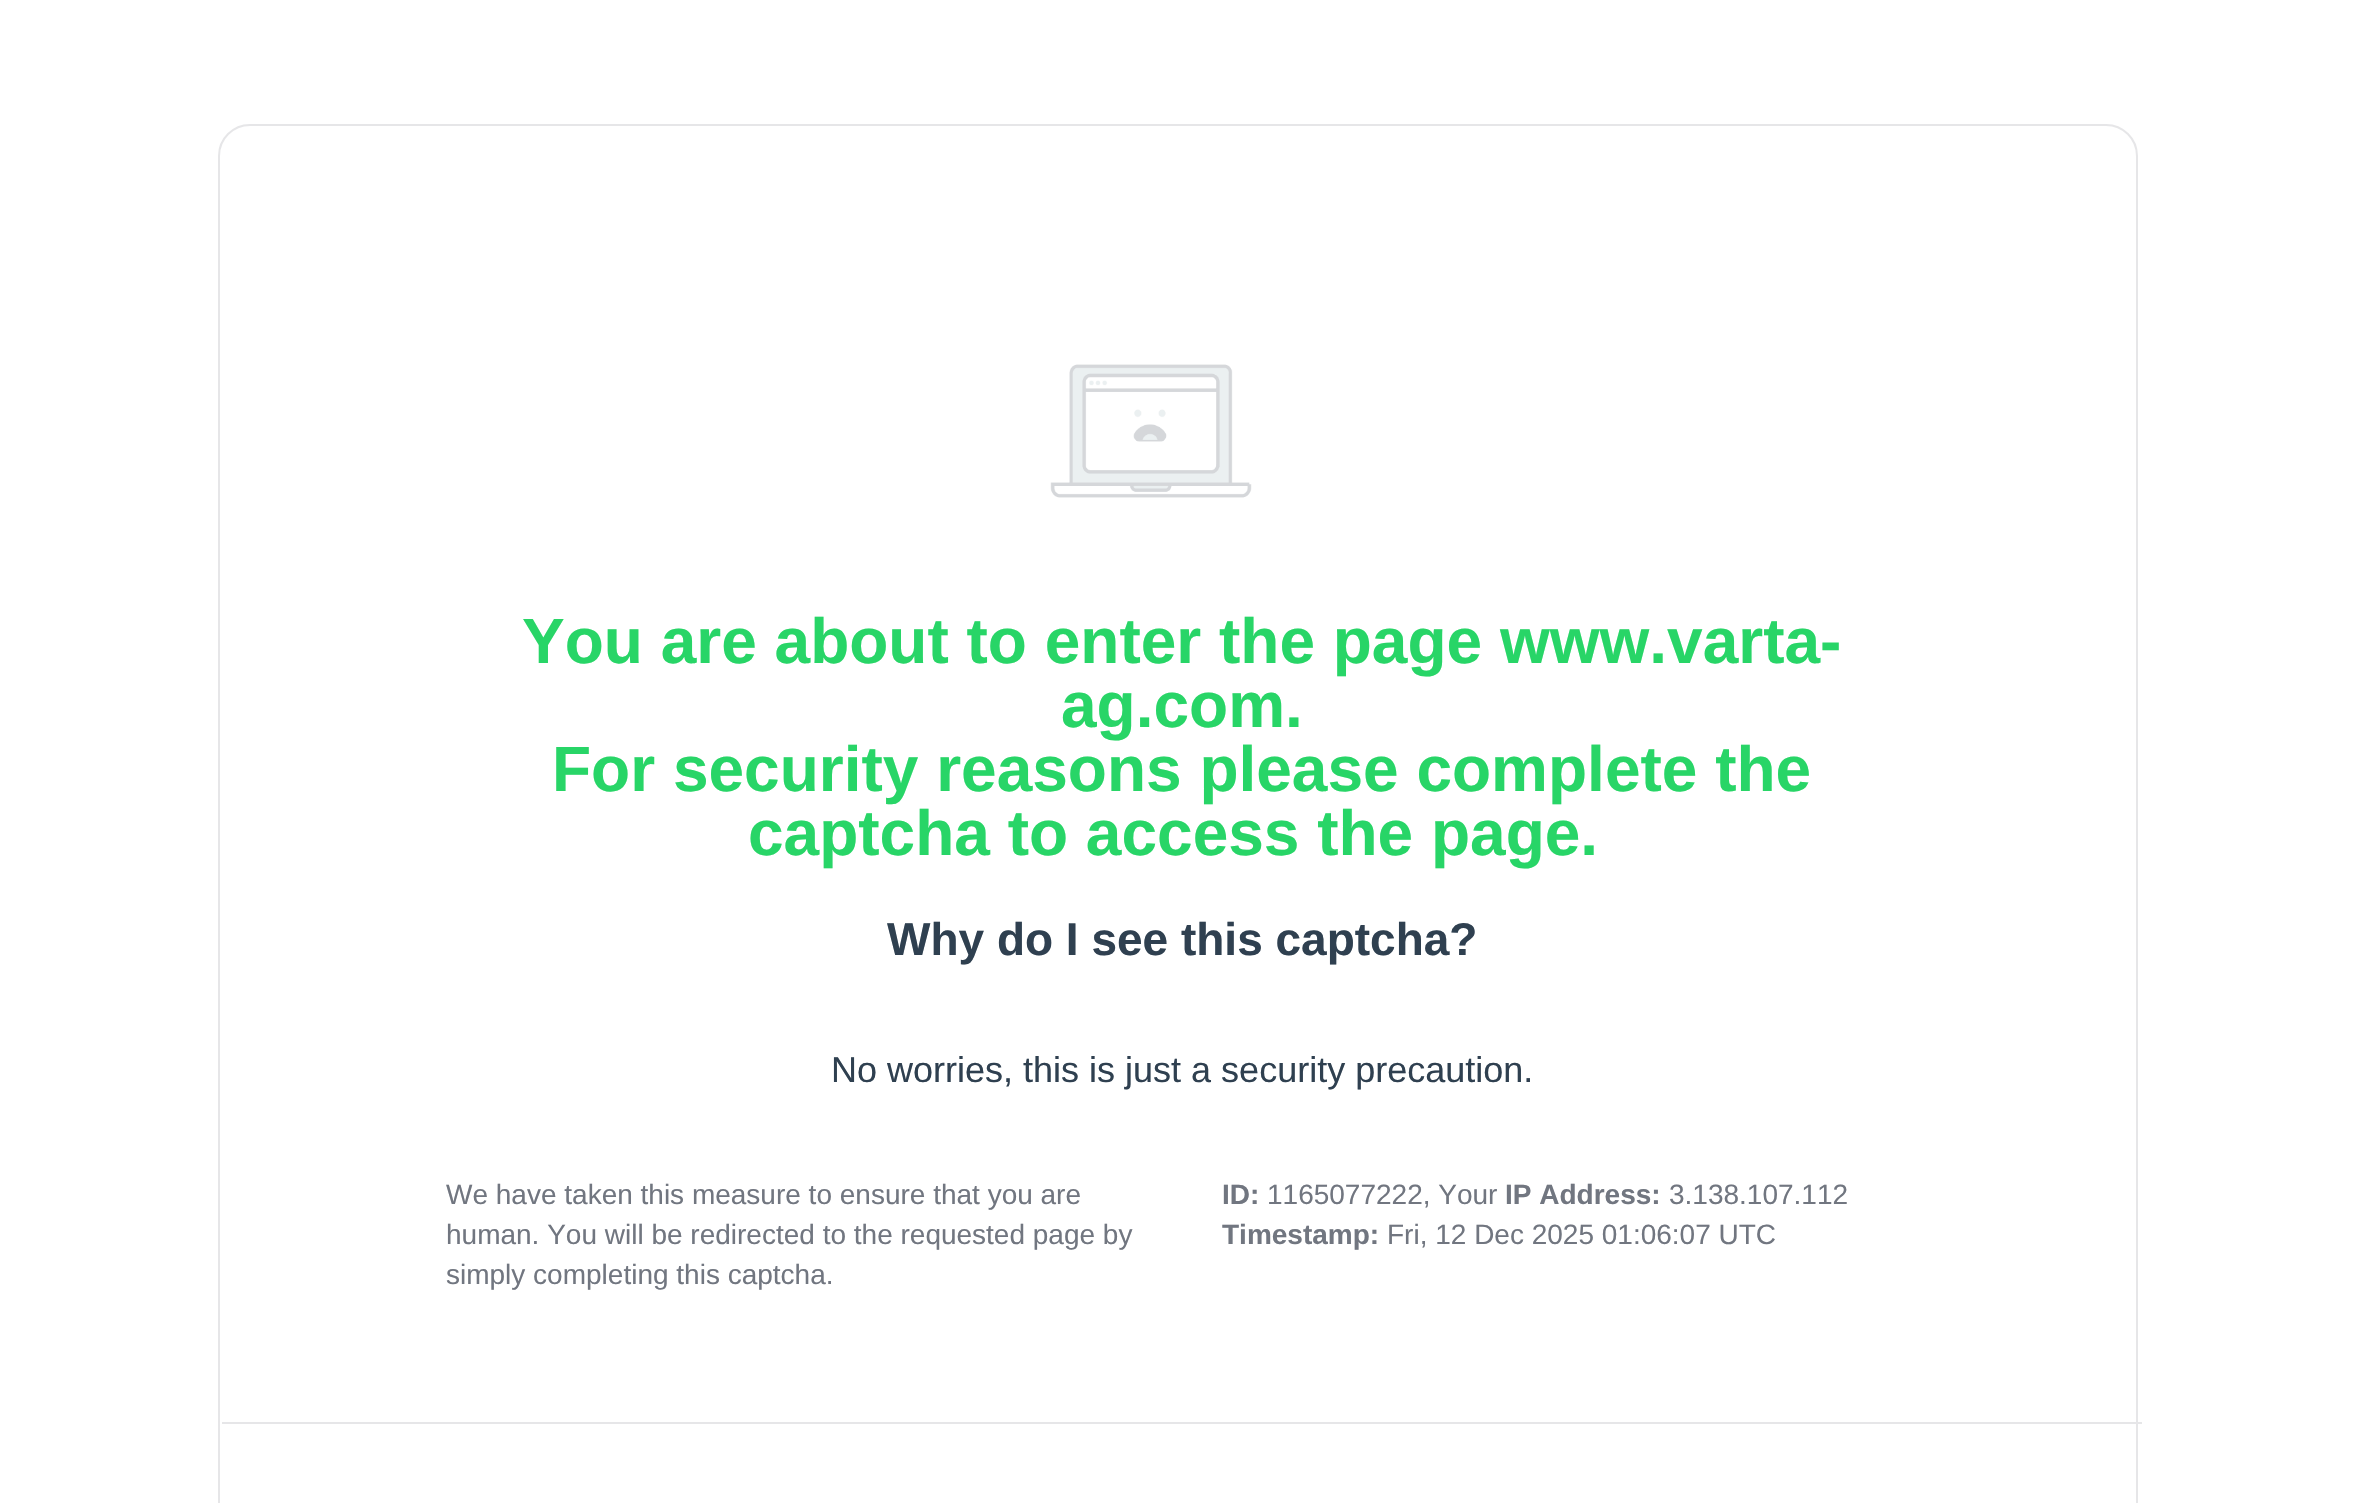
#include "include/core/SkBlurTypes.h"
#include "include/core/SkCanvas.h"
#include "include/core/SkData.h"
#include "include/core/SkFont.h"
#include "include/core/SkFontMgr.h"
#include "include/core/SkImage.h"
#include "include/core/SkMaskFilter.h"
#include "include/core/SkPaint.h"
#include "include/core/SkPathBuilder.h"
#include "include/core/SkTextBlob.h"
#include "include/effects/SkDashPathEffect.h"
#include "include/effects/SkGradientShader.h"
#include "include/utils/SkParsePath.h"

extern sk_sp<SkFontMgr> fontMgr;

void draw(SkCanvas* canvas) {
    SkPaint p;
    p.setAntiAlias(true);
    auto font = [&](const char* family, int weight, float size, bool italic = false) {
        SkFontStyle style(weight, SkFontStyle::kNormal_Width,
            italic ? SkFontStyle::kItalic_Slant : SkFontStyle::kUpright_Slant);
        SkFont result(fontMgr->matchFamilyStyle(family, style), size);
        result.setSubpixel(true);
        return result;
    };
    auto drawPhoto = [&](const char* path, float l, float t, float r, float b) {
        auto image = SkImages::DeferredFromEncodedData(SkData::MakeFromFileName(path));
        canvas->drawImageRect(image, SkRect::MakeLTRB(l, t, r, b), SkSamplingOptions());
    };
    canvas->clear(0xFFFFFFFF);
    p.setStyle(SkPaint::kStroke_Style);
    p.setStrokeWidth(2);
    p.setColor(0xFFE6E6E8);
    canvas->drawRoundRect(SkRect::MakeLTRB(219, 125, 2137, 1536), 31, 31, p);
    p.setStyle(SkPaint::kFill_Style);
    canvas->drawRect(SkRect::MakeLTRB(222, 1422, 2142, 1424), p);
    drawPhoto("media/1.png", 1050, 364, 1252, 498);
    auto font1 = font("Liberation Sans", 700, 64);
    p.setColor(0xFF28D567);
    {
        const struct { const char* s; float x, y; } items[] = {
            {"You are about to enter the page www.varta-", 522, 663},
            {"ag.com.", 1061, 727},
            {"For security reasons please complete the", 552, 791},
            {"captcha to access the page.", 748, 855},
        };
        for (auto [s, x, y] : items) {
            canvas->drawString(s, x, y, font1, p);
        }
    }
    auto font2 = font("Liberation Sans", 700, 46);
    p.setColor(0xFF2F4050);
    canvas->drawString("Why do I see this captcha?", 887, 955, font2, p);
    auto font3 = font("Liberation Sans", 400, 36);
    canvas->drawString("No worries, this is just a security precaution.", 831, 1082, font3, p);
    auto font4 = font("Liberation Sans", 400, 28);
    p.setColor(0xFF717680);
    {
        const struct { const char* s; float x, y; } items[] = {
            {"We have taken this measure to ensure that you are", 446, 1204},
            {"human. You will be redirected to the requested page by", 446, 1244},
            {"simply completing this captcha.", 446, 1284},
        };
        for (auto [s, x, y] : items) {
            canvas->drawString(s, x, y, font4, p);
        }
    }
    auto font5 = font("Liberation Sans", 700, 28);
    canvas->drawString("ID:", 1222, 1204, font5, p);
    canvas->drawString("1165077222, Your", 1267, 1204, font4, p);
    canvas->drawString("IP Address:", 1505, 1204, font5, p);
    canvas->drawString("3.138.107.112", 1669, 1204, font4, p);
    canvas->drawString("Timestamp:", 1222, 1244, font5, p);
    canvas->drawString("Fri, 12 Dec 2025 01:06:07 UTC", 1387, 1244, font4, p);
}
